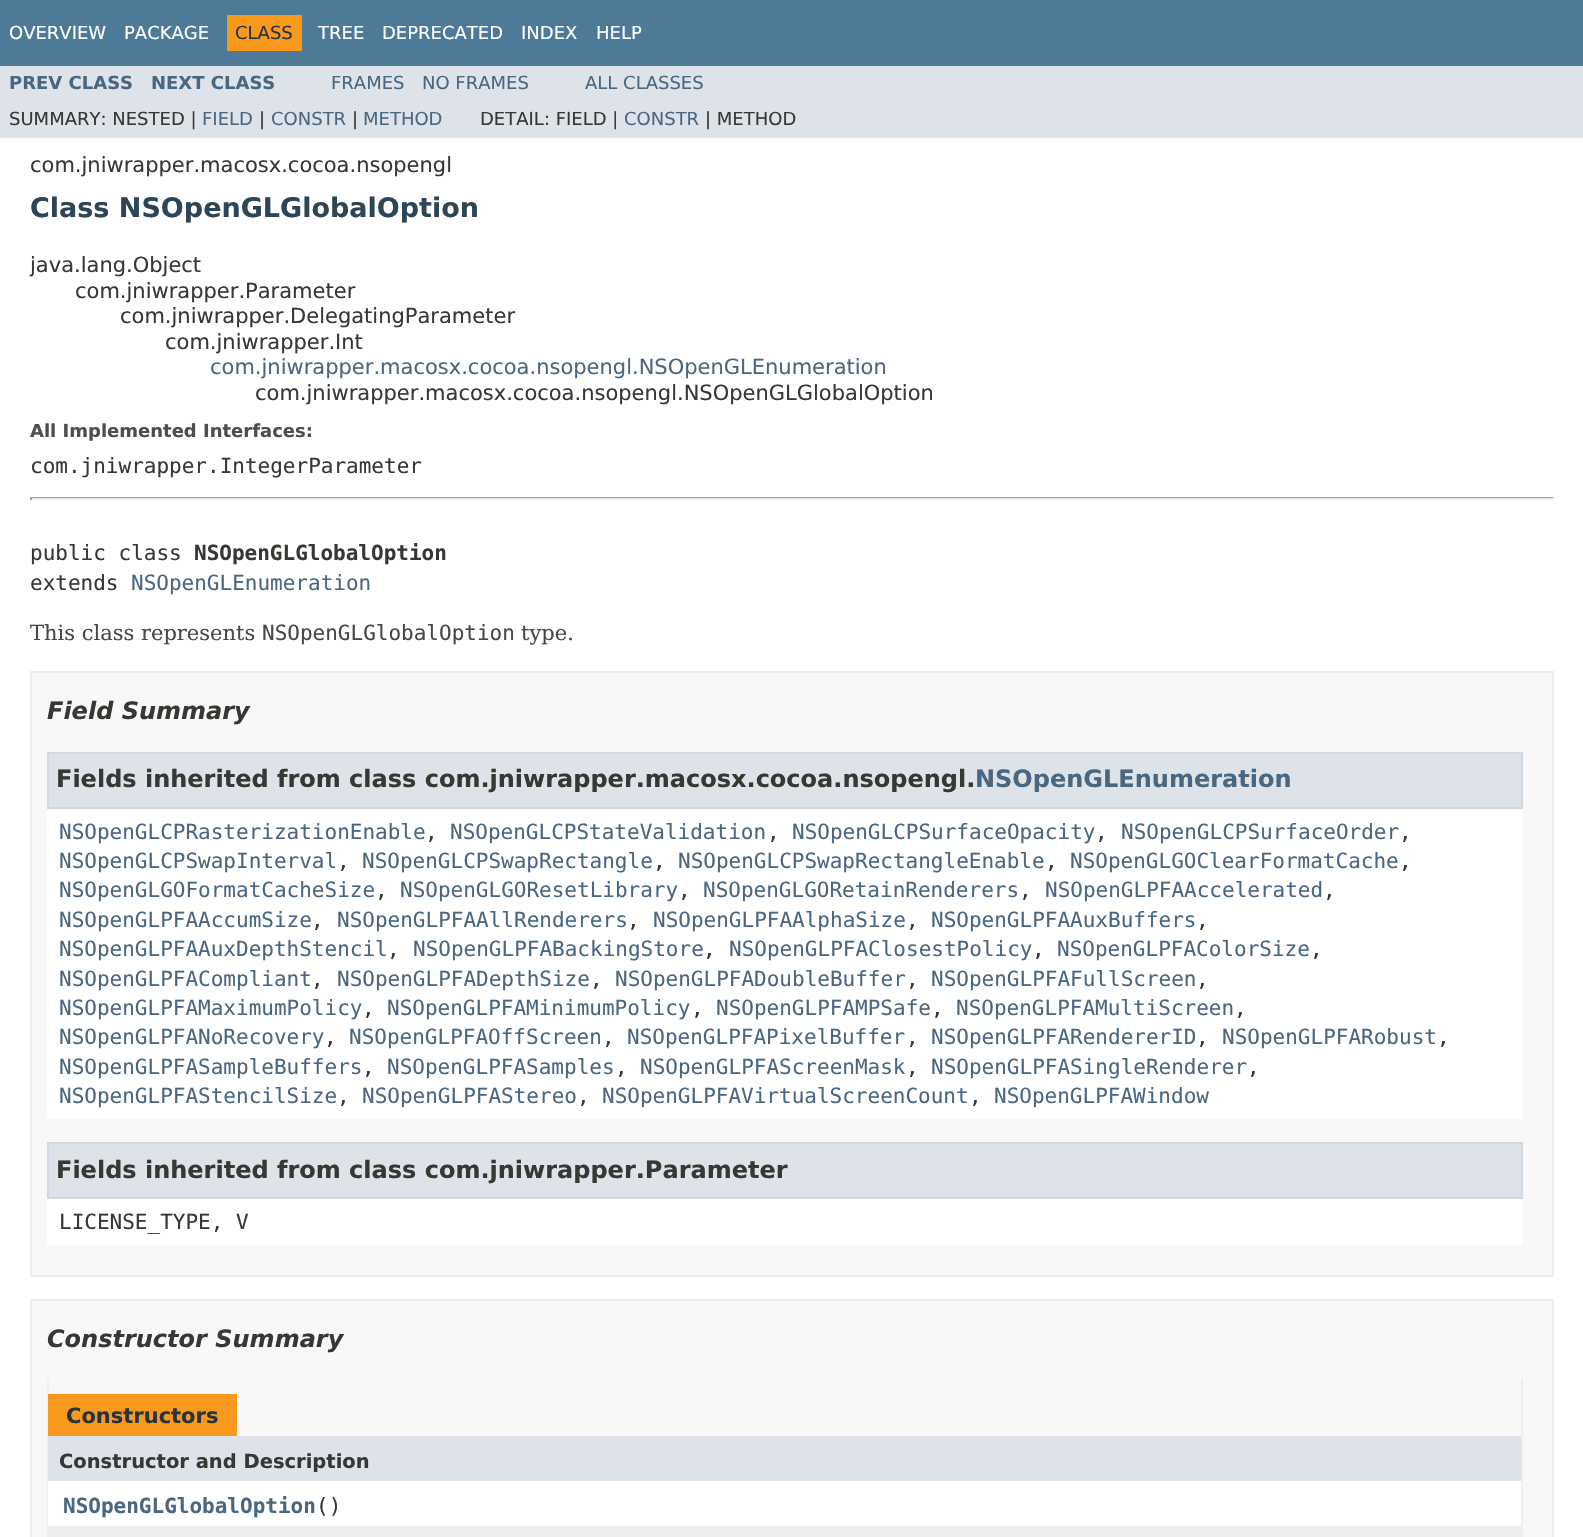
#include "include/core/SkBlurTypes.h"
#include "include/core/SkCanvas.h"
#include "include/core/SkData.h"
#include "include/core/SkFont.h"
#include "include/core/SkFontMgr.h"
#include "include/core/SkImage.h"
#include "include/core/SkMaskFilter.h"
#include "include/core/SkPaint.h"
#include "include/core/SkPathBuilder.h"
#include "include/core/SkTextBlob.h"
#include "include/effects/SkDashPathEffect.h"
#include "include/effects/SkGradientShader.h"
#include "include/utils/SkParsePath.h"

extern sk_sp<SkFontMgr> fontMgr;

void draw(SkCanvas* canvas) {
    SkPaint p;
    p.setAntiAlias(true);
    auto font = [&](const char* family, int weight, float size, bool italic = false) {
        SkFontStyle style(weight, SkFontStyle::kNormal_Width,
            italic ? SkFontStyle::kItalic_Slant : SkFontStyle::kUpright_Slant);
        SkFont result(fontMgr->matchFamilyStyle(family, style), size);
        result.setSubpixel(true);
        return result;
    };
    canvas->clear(0xFFFFFFFF);
    p.setColor(0xFF4D7A97);
    canvas->drawRect(SkRect::MakeLTRB(0, 0, 1583, 66), p);
    auto font1 = font("DejaVu Sans", 400, 18);
    p.setColor(0xFFFFFFFF);
    canvas->drawString("OVERVIEW", 9, 39, font1, p);
    canvas->drawString("PACKAGE", 124, 39, font1, p);
    p.setColor(0xFFF8981D);
    canvas->drawRect(SkRect::MakeLTRB(227, 15, 302, 51), p);
    p.setColor(0xFF253441);
    canvas->drawString("CLASS", 235, 39, font1, p);
    p.setColor(0xFFFFFFFF);
    {
        const struct { const char* s; float x, y; } items[] = {
            {"TREE", 318, 39},
            {"DEPRECATED", 382, 39},
            {"INDEX", 521, 39},
            {"HELP", 596, 39},
        };
        for (auto [s, x, y] : items) {
            canvas->drawString(s, x, y, font1, p);
        }
    }
    p.setColor(0xFFDEE3E9);
    canvas->drawRect(SkRect::MakeLTRB(0, 66, 1583, 138), p);
    auto font2 = font("DejaVu Sans", 700, 18);
    p.setColor(0xFF4A6782);
    canvas->drawString("PREV CLASS", 9, 89, font2, p);
    canvas->drawString("NEXT CLASS", 151, 89, font2, p);
    {
        const struct { const char* s; float x, y; } items[] = {
            {"FRAMES", 331, 89},
            {"NO FRAMES", 422, 89},
            {"ALL CLASSES", 585, 89},
        };
        for (auto [s, x, y] : items) {
            canvas->drawString(s, x, y, font1, p);
        }
    }
    p.setColor(0xFF353833);
    canvas->drawString("SUMMARY: NESTED |", 9, 125, font1, p);
    p.setColor(0xFF4A6782);
    canvas->drawString("FIELD", 202, 125, font1, p);
    p.setColor(0xFF353833);
    canvas->drawString("|", 259, 125, font1, p);
    p.setColor(0xFF4A6782);
    canvas->drawString("CONSTR", 271, 125, font1, p);
    p.setColor(0xFF353833);
    canvas->drawString("|", 352, 125, font1, p);
    p.setColor(0xFF4A6782);
    canvas->drawString("METHOD", 363, 125, font1, p);
    p.setColor(0xFF353833);
    canvas->drawString("DETAIL: FIELD |", 480, 125, font1, p);
    p.setColor(0xFF4A6782);
    canvas->drawString("CONSTR", 624, 125, font1, p);
    p.setColor(0xFF353833);
    canvas->drawString("| METHOD", 705, 125, font1, p);
    auto font3 = font("DejaVu Sans", 400, 21);
    canvas->drawString("com.jniwrapper.macosx.cocoa.nsopengl", 30, 172, font3, p);
    auto font4 = font("DejaVu Sans", 700, 27);
    p.setColor(0xFF2C4557);
    canvas->drawString("Class NSOpenGLGlobalOption", 30, 217, font4, p);
    p.setColor(0xFF353833);
    {
        const struct { const char* s; float x, y; } items[] = {
            {"java.lang.Object", 30, 272},
            {"com.jniwrapper.Parameter", 75, 298},
            {"com.jniwrapper.DelegatingParameter", 120, 323},
            {"com.jniwrapper.Int", 165, 349},
        };
        for (auto [s, x, y] : items) {
            canvas->drawString(s, x, y, font3, p);
        }
    }
    p.setColor(0xFF4A6782);
    canvas->drawString("com.jniwrapper.macosx.cocoa.nsopengl.NSOpenGLEnumeration", 210, 374, font3, p);
    p.setColor(0xFF353833);
    canvas->drawString("com.jniwrapper.macosx.cocoa.nsopengl.NSOpenGLGlobalOption", 255, 400, font3, p);
    p.setColor(0xFF4E4E4E);
    canvas->drawString("All Implemented Interfaces:", 30, 437, font2, p);
    auto font5 = font("DejaVu Sans Mono", 400, 21);
    p.setColor(0xFF353833);
    canvas->drawString("com.jniwrapper.IntegerParameter", 30, 473, font5, p);
    {
        const struct { float l, t, r, b; SkColor color; } items[] = {
            {30, 497, 1554, 498, 0xFF9F9F9F},
            {1553, 497, 1555, 500, 0xFFEEEEEE},
            {30, 498, 1554, 500, 0xFFEEEEEE},
            {30, 497, 32, 500, 0xFF9F9F9F},
        };
        for (auto [l, t, r, b, color] : items) {
            p.setColor(color);
            canvas->drawRect(SkRect::MakeLTRB(l, t, r, b), p);
        }
    }
    p.setColor(0xFF353833);
    canvas->drawString("public class", 30, 560, font5, p);
    auto font6 = font("DejaVu Sans Mono", 700, 21);
    canvas->drawString("NSOpenGLGlobalOption", 194, 560, font6, p);
    canvas->drawString("extends", 30, 590, font5, p);
    p.setColor(0xFF4A6782);
    canvas->drawString("NSOpenGLEnumeration", 131, 590, font5, p);
    auto font7 = font("DejaVu Serif", 400, 21);
    p.setColor(0xFF474747);
    canvas->drawString("This class represents", 30, 640, font7, p);
    canvas->drawString("NSOpenGLGlobalOption", 262, 640, font5, p);
    canvas->drawString("type.", 521, 640, font7, p);
    p.setColor(0xFFF8F8F8);
    canvas->drawRect(SkRect::MakeLTRB(31, 672, 1553, 1276), p);
    p.setStyle(SkPaint::kStroke_Style);
    p.setStrokeWidth(2);
    p.setColor(0xFFEDEDED);
    canvas->drawRect(SkRect::MakeLTRB(31, 672, 1553, 1276), p);
    auto font8 = font("DejaVu Sans", 700, 24, true);
    p.setStyle(SkPaint::kFill_Style);
    p.setColor(0xFF353833);
    canvas->drawString("Field Summary", 47, 719, font8, p);
    p.setColor(0xFFFFFFFF);
    canvas->drawRect(SkRect::MakeLTRB(47, 809, 1523, 1119), p);
    p.setColor(0xFFDEE3E9);
    canvas->drawRect(SkRect::MakeLTRB(48, 753, 1522, 808), p);
    p.setStyle(SkPaint::kStroke_Style);
    p.setColor(0xFFD0D9E0);
    canvas->drawRect(SkRect::MakeLTRB(48, 753, 1522, 808), p);
    auto font9 = font("DejaVu Sans", 700, 24);
    p.setStyle(SkPaint::kFill_Style);
    p.setColor(0xFF353833);
    canvas->drawString("Fields inherited from class com.jniwrapper.macosx.cocoa.nsopengl.", 56, 787, font9, p);
    p.setColor(0xFF4A6782);
    canvas->drawString("NSOpenGLEnumeration", 975, 787, font9, p);
    canvas->drawString("NSOpenGLCPRasterizationEnable", 59, 839, font5, p);
    p.setColor(0xFF353833);
    canvas->drawString(",", 425, 839, font5, p);
    p.setColor(0xFF4A6782);
    canvas->drawString("NSOpenGLCPStateValidation", 450, 839, font5, p);
    p.setColor(0xFF353833);
    canvas->drawString(",", 767, 839, font5, p);
    p.setColor(0xFF4A6782);
    canvas->drawString("NSOpenGLCPSurfaceOpacity", 792, 839, font5, p);
    p.setColor(0xFF353833);
    canvas->drawString(",", 1095, 839, font5, p);
    p.setColor(0xFF4A6782);
    canvas->drawString("NSOpenGLCPSurfaceOrder", 1121, 839, font5, p);
    p.setColor(0xFF353833);
    canvas->drawString(",", 1399, 839, font5, p);
    p.setColor(0xFF4A6782);
    canvas->drawString("NSOpenGLCPSwapInterval", 59, 868, font5, p);
    p.setColor(0xFF353833);
    canvas->drawString(",", 337, 868, font5, p);
    p.setColor(0xFF4A6782);
    canvas->drawString("NSOpenGLCPSwapRectangle", 362, 868, font5, p);
    p.setColor(0xFF353833);
    canvas->drawString(",", 653, 868, font5, p);
    p.setColor(0xFF4A6782);
    canvas->drawString("NSOpenGLCPSwapRectangleEnable", 678, 868, font5, p);
    p.setColor(0xFF353833);
    canvas->drawString(",", 1045, 868, font5, p);
    p.setColor(0xFF4A6782);
    canvas->drawString("NSOpenGLGOClearFormatCache", 1070, 868, font5, p);
    p.setColor(0xFF353833);
    canvas->drawString(",", 1399, 868, font5, p);
    p.setColor(0xFF4A6782);
    canvas->drawString("NSOpenGLGOFormatCacheSize", 59, 897, font5, p);
    p.setColor(0xFF353833);
    canvas->drawString(",", 375, 897, font5, p);
    p.setColor(0xFF4A6782);
    canvas->drawString("NSOpenGLGOResetLibrary", 400, 897, font5, p);
    p.setColor(0xFF353833);
    canvas->drawString(",", 678, 897, font5, p);
    p.setColor(0xFF4A6782);
    canvas->drawString("NSOpenGLGORetainRenderers", 703, 897, font5, p);
    p.setColor(0xFF353833);
    canvas->drawString(",", 1019, 897, font5, p);
    p.setColor(0xFF4A6782);
    canvas->drawString("NSOpenGLPFAAccelerated", 1045, 897, font5, p);
    p.setColor(0xFF353833);
    canvas->drawString(",", 1323, 897, font5, p);
    p.setColor(0xFF4A6782);
    canvas->drawString("NSOpenGLPFAAccumSize", 59, 927, font5, p);
    p.setColor(0xFF353833);
    canvas->drawString(",", 311, 927, font5, p);
    p.setColor(0xFF4A6782);
    canvas->drawString("NSOpenGLPFAAllRenderers", 337, 927, font5, p);
    p.setColor(0xFF353833);
    canvas->drawString(",", 627, 927, font5, p);
    p.setColor(0xFF4A6782);
    canvas->drawString("NSOpenGLPFAAlphaSize", 653, 927, font5, p);
    p.setColor(0xFF353833);
    canvas->drawString(",", 906, 927, font5, p);
    p.setColor(0xFF4A6782);
    canvas->drawString("NSOpenGLPFAAuxBuffers", 931, 927, font5, p);
    p.setColor(0xFF353833);
    canvas->drawString(",", 1196, 927, font5, p);
    p.setColor(0xFF4A6782);
    canvas->drawString("NSOpenGLPFAAuxDepthStencil", 59, 956, font5, p);
    p.setColor(0xFF353833);
    canvas->drawString(",", 387, 956, font5, p);
    p.setColor(0xFF4A6782);
    canvas->drawString("NSOpenGLPFABackingStore", 413, 956, font5, p);
    p.setColor(0xFF353833);
    canvas->drawString(",", 703, 956, font5, p);
    p.setColor(0xFF4A6782);
    canvas->drawString("NSOpenGLPFAClosestPolicy", 729, 956, font5, p);
    p.setColor(0xFF353833);
    canvas->drawString(",", 1032, 956, font5, p);
    p.setColor(0xFF4A6782);
    canvas->drawString("NSOpenGLPFAColorSize", 1057, 956, font5, p);
    p.setColor(0xFF353833);
    canvas->drawString(",", 1310, 956, font5, p);
    p.setColor(0xFF4A6782);
    canvas->drawString("NSOpenGLPFACompliant", 59, 986, font5, p);
    p.setColor(0xFF353833);
    canvas->drawString(",", 311, 986, font5, p);
    p.setColor(0xFF4A6782);
    canvas->drawString("NSOpenGLPFADepthSize", 337, 986, font5, p);
    p.setColor(0xFF353833);
    canvas->drawString(",", 590, 986, font5, p);
    p.setColor(0xFF4A6782);
    canvas->drawString("NSOpenGLPFADoubleBuffer", 615, 986, font5, p);
    p.setColor(0xFF353833);
    canvas->drawString(",", 906, 986, font5, p);
    p.setColor(0xFF4A6782);
    canvas->drawString("NSOpenGLPFAFullScreen", 931, 986, font5, p);
    p.setColor(0xFF353833);
    canvas->drawString(",", 1196, 986, font5, p);
    p.setColor(0xFF4A6782);
    canvas->drawString("NSOpenGLPFAMaximumPolicy", 59, 1015, font5, p);
    p.setColor(0xFF353833);
    canvas->drawString(",", 362, 1015, font5, p);
    p.setColor(0xFF4A6782);
    canvas->drawString("NSOpenGLPFAMinimumPolicy", 387, 1015, font5, p);
    p.setColor(0xFF353833);
    canvas->drawString(",", 691, 1015, font5, p);
    p.setColor(0xFF4A6782);
    canvas->drawString("NSOpenGLPFAMPSafe", 716, 1015, font5, p);
    p.setColor(0xFF353833);
    canvas->drawString(",", 931, 1015, font5, p);
    p.setColor(0xFF4A6782);
    canvas->drawString("NSOpenGLPFAMultiScreen", 956, 1015, font5, p);
    p.setColor(0xFF353833);
    canvas->drawString(",", 1234, 1015, font5, p);
    p.setColor(0xFF4A6782);
    canvas->drawString("NSOpenGLPFANoRecovery", 59, 1044, font5, p);
    p.setColor(0xFF353833);
    canvas->drawString(",", 324, 1044, font5, p);
    p.setColor(0xFF4A6782);
    canvas->drawString("NSOpenGLPFAOffScreen", 349, 1044, font5, p);
    p.setColor(0xFF353833);
    canvas->drawString(",", 602, 1044, font5, p);
    p.setColor(0xFF4A6782);
    canvas->drawString("NSOpenGLPFAPixelBuffer", 627, 1044, font5, p);
    p.setColor(0xFF353833);
    canvas->drawString(",", 906, 1044, font5, p);
    p.setColor(0xFF4A6782);
    canvas->drawString("NSOpenGLPFARendererID", 931, 1044, font5, p);
    p.setColor(0xFF353833);
    canvas->drawString(",", 1196, 1044, font5, p);
    p.setColor(0xFF4A6782);
    canvas->drawString("NSOpenGLPFARobust", 1222, 1044, font5, p);
    p.setColor(0xFF353833);
    canvas->drawString(",", 1437, 1044, font5, p);
    p.setColor(0xFF4A6782);
    canvas->drawString("NSOpenGLPFASampleBuffers", 59, 1074, font5, p);
    p.setColor(0xFF353833);
    canvas->drawString(",", 362, 1074, font5, p);
    p.setColor(0xFF4A6782);
    canvas->drawString("NSOpenGLPFASamples", 387, 1074, font5, p);
    p.setColor(0xFF353833);
    canvas->drawString(",", 615, 1074, font5, p);
    p.setColor(0xFF4A6782);
    canvas->drawString("NSOpenGLPFAScreenMask", 640, 1074, font5, p);
    p.setColor(0xFF353833);
    canvas->drawString(",", 906, 1074, font5, p);
    p.setColor(0xFF4A6782);
    canvas->drawString("NSOpenGLPFASingleRenderer", 931, 1074, font5, p);
    p.setColor(0xFF353833);
    canvas->drawString(",", 1247, 1074, font5, p);
    p.setColor(0xFF4A6782);
    canvas->drawString("NSOpenGLPFAStencilSize", 59, 1103, font5, p);
    p.setColor(0xFF353833);
    canvas->drawString(",", 337, 1103, font5, p);
    p.setColor(0xFF4A6782);
    canvas->drawString("NSOpenGLPFAStereo", 362, 1103, font5, p);
    p.setColor(0xFF353833);
    canvas->drawString(",", 577, 1103, font5, p);
    p.setColor(0xFF4A6782);
    canvas->drawString("NSOpenGLPFAVirtualScreenCount", 602, 1103, font5, p);
    p.setColor(0xFF353833);
    canvas->drawString(",", 969, 1103, font5, p);
    p.setColor(0xFF4A6782);
    canvas->drawString("NSOpenGLPFAWindow", 994, 1103, font5, p);
    p.setColor(0xFFFFFFFF);
    canvas->drawRect(SkRect::MakeLTRB(47, 1199, 1523, 1245), p);
    p.setColor(0xFFDEE3E9);
    canvas->drawRect(SkRect::MakeLTRB(48, 1143, 1522, 1198), p);
    p.setStyle(SkPaint::kStroke_Style);
    p.setColor(0xFFD0D9E0);
    canvas->drawRect(SkRect::MakeLTRB(48, 1143, 1522, 1198), p);
    p.setStyle(SkPaint::kFill_Style);
    p.setColor(0xFF353833);
    canvas->drawString("Fields inherited from class com.jniwrapper.Parameter", 56, 1178, font9, p);
    canvas->drawString("LICENSE_TYPE, V", 59, 1229, font5, p);
    p.setColor(0xFFF8F8F8);
    canvas->drawRect(SkRect::MakeLTRB(31, 1300, 1553, 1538), p);
    p.setStyle(SkPaint::kStroke_Style);
    p.setColor(0xFFEDEDED);
    canvas->drawRect(SkRect::MakeLTRB(31, 1300, 1553, 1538), p);
    p.setStyle(SkPaint::kFill_Style);
    p.setColor(0xFF353833);
    canvas->drawString("Constructor Summary", 47, 1347, font8, p);
    {
        const struct { float l, t, r, b; SkColor color; } items[] = {
            {1521, 1379, 1523, 1537, 0xFFEEEEEE},
            {47, 1379, 49, 1537, 0xFFEEEEEE},
            {48, 1394, 237, 1436, 0xFFF8981D},
        };
        for (auto [l, t, r, b, color] : items) {
            p.setColor(color);
            canvas->drawRect(SkRect::MakeLTRB(l, t, r, b), p);
        }
    }
    auto font10 = font("DejaVu Sans", 700, 21);
    p.setColor(0xFF253441);
    canvas->drawString("Constructors", 66, 1423, font10, p);
    p.setColor(0xFFDEE3E9);
    canvas->drawRect(SkRect::MakeLTRB(48, 1436, 1521, 1481), p);
    auto font11 = font("DejaVu Sans", 700, 19.5f);
    p.setColor(0xFF353833);
    canvas->drawString("Constructor and Description", 59, 1468, font11, p);
    p.setColor(0xFFFFFFFF);
    canvas->drawRect(SkRect::MakeLTRB(48, 1481, 1521, 1526), p);
    p.setColor(0xFF4A6782);
    canvas->drawString("NSOpenGLGlobalOption", 63, 1513, font6, p);
    p.setColor(0xFF353833);
    canvas->drawString("()", 316, 1513, font5, p);
    p.setColor(0xFFEEEEEF);
    canvas->drawRect(SkRect::MakeLTRB(49, 1526, 1521, 1537), p);
}
